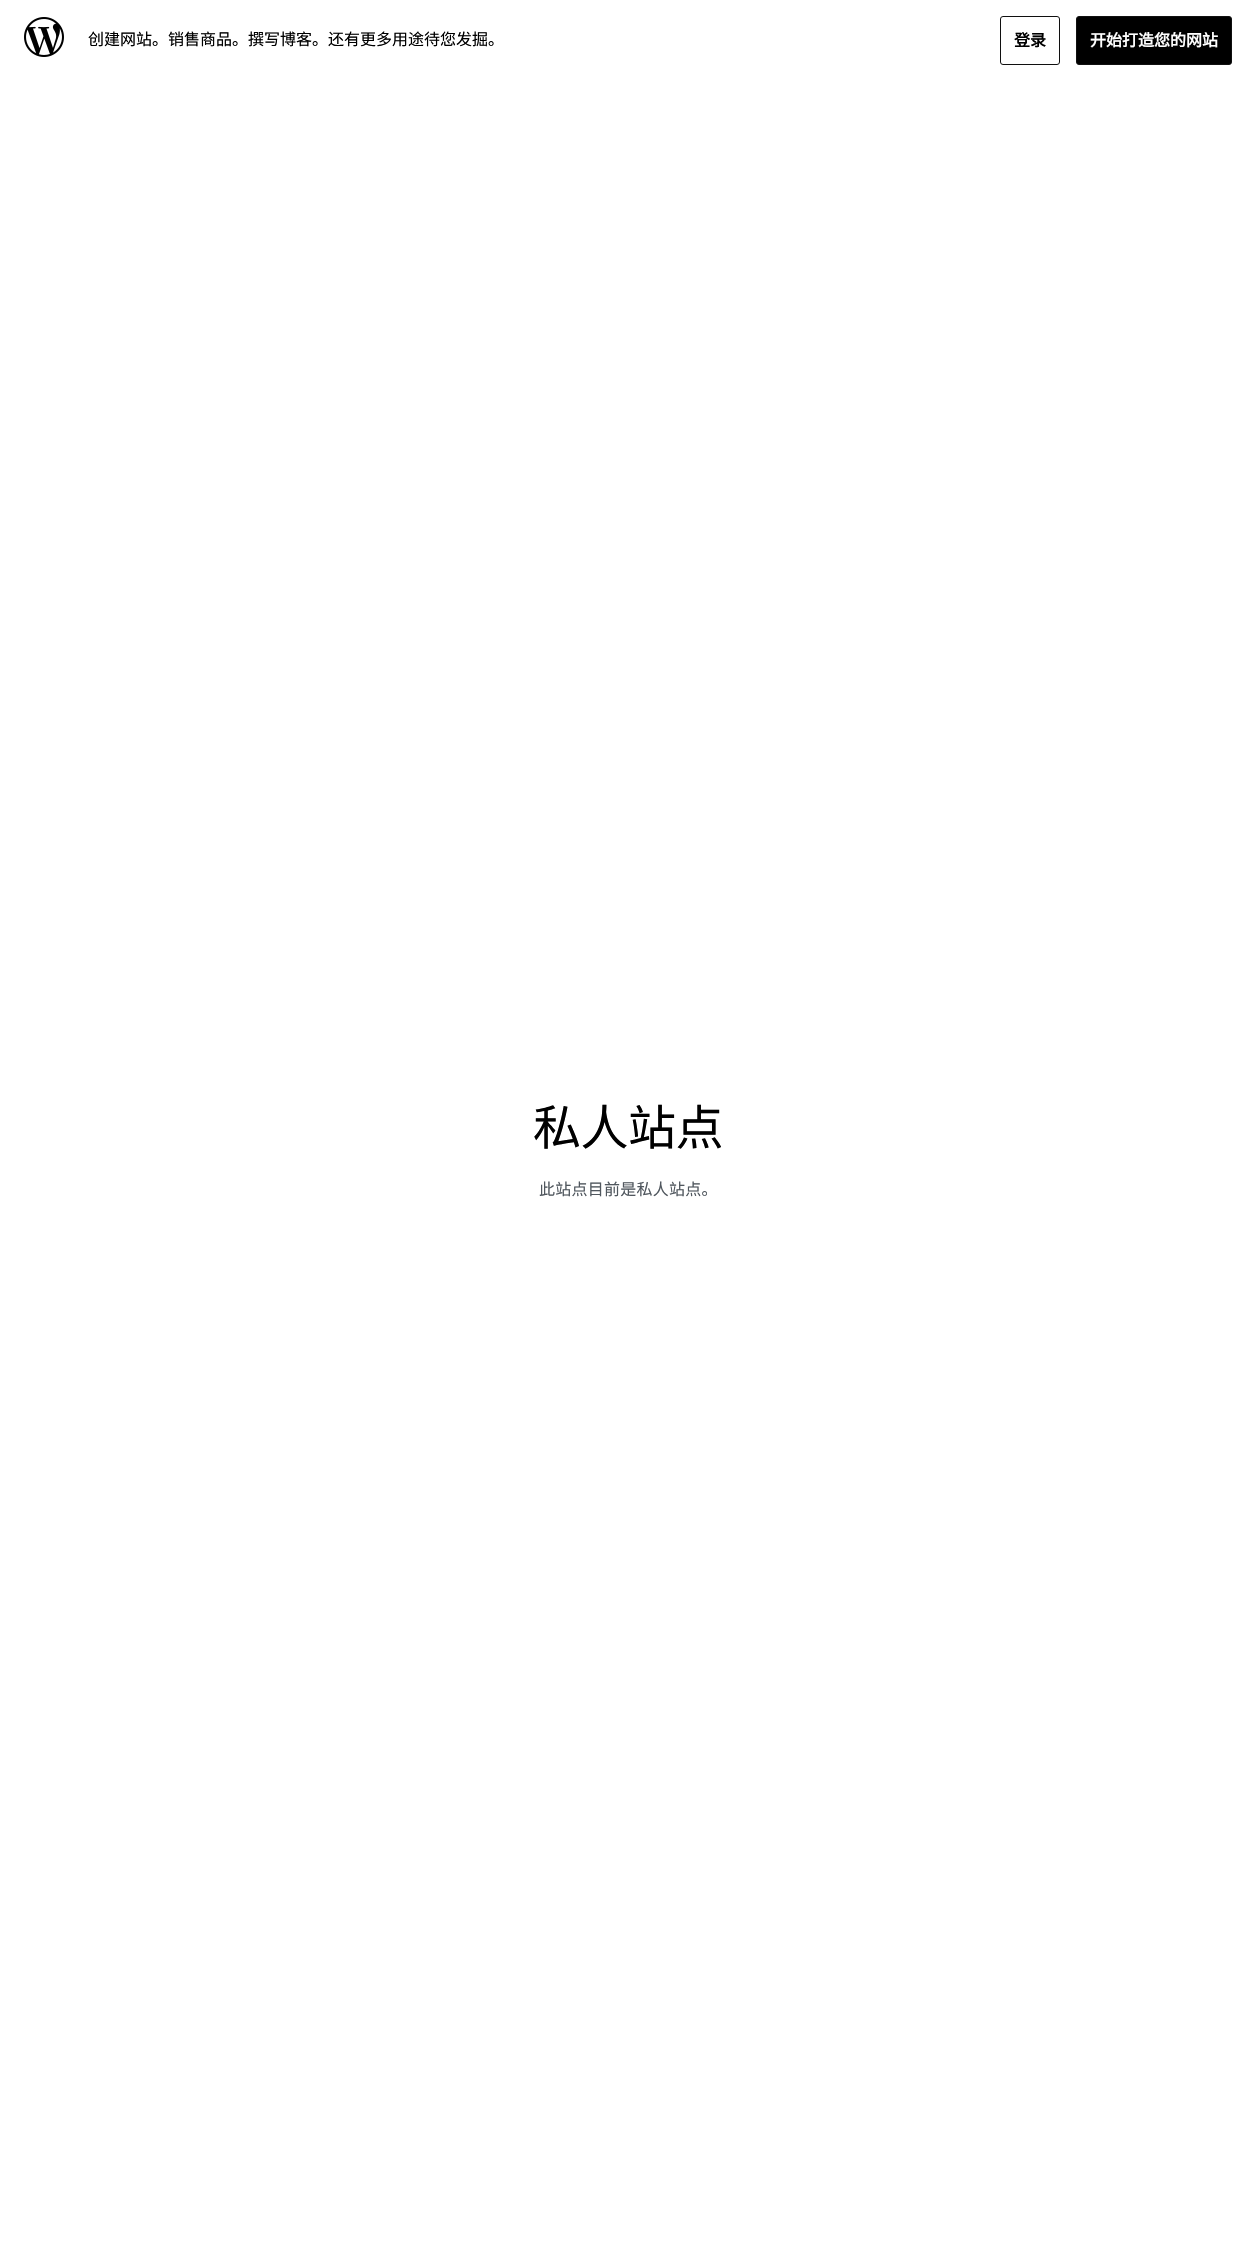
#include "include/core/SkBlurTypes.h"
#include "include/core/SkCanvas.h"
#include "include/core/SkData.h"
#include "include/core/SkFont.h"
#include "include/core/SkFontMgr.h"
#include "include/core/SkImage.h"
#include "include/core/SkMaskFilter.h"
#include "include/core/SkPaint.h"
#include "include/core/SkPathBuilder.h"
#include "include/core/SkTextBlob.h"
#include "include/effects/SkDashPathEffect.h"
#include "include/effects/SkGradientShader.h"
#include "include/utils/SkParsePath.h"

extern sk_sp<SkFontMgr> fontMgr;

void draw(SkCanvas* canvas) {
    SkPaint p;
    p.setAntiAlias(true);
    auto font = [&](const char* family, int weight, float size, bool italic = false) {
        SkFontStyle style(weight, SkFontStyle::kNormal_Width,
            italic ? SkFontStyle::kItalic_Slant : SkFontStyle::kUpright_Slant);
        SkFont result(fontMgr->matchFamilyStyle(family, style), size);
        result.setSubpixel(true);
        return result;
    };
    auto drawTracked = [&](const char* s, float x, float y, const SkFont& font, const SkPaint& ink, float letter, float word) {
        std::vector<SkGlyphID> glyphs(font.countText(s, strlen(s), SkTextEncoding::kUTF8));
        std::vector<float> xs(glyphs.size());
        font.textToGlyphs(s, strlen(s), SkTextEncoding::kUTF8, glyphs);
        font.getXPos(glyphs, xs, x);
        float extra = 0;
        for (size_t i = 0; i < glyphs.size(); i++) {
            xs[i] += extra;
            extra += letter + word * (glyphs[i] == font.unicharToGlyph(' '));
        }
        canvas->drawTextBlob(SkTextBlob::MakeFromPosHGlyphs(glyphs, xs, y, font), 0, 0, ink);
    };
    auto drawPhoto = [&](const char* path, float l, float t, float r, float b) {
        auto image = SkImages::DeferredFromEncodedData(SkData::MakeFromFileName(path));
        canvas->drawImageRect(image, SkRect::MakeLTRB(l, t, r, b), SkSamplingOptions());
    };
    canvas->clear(0xFFFFFFFF);
    drawPhoto("media/1.png", 24, 17, 64, 57);
    auto font1 = font("Noto Sans CJK SC", 400, 16);
    p.setColor(0xFF000000);
    canvas->drawString("创建网站。销售商品。撰写博客。还有更多用途待您发掘。", 88, 45, font1, p);
    p.setStyle(SkPaint::kStroke_Style);
    p.setStrokeWidth(1);
    p.setColor(0xFF101010);
    canvas->drawRoundRect(SkRect::MakeLTRB(1000.5f, 16.5f, 1059.5f, 64.5f), 2.5f, 2.5f, p);
    auto font2 = font("Noto Sans CJK SC", 700, 16);
    p.setStyle(SkPaint::kFill_Style);
    p.setColor(0xFF000000);
    canvas->drawString("登录", 1014, 46, font2, p);
    canvas->drawRoundRect(SkRect::MakeLTRB(1076.5f, 16.5f, 1231.5f, 64.5f), 2.5f, 2.5f, p);
    p.setStyle(SkPaint::kStroke_Style);
    p.setColor(0xFF101010);
    canvas->drawRoundRect(SkRect::MakeLTRB(1076.5f, 16.5f, 1231.5f, 64.5f), 2.5f, 2.5f, p);
    p.setStyle(SkPaint::kFill_Style);
    p.setColor(0xFFFFFFFF);
    canvas->drawString("开始打造您的网站", 1090, 46, font2, p);
    auto font3 = font("Noto Sans CJK SC", 400, 48);
    p.setColor(0xFF000000);
    drawTracked("私人站点", 533, 1145, font3, p, -0.5f, 0);
    p.setColor(0xFF50575E);
    drawTracked("此站点目前是私人站点。", 539, 1195, font1, p, 0.25f, 0);
}
